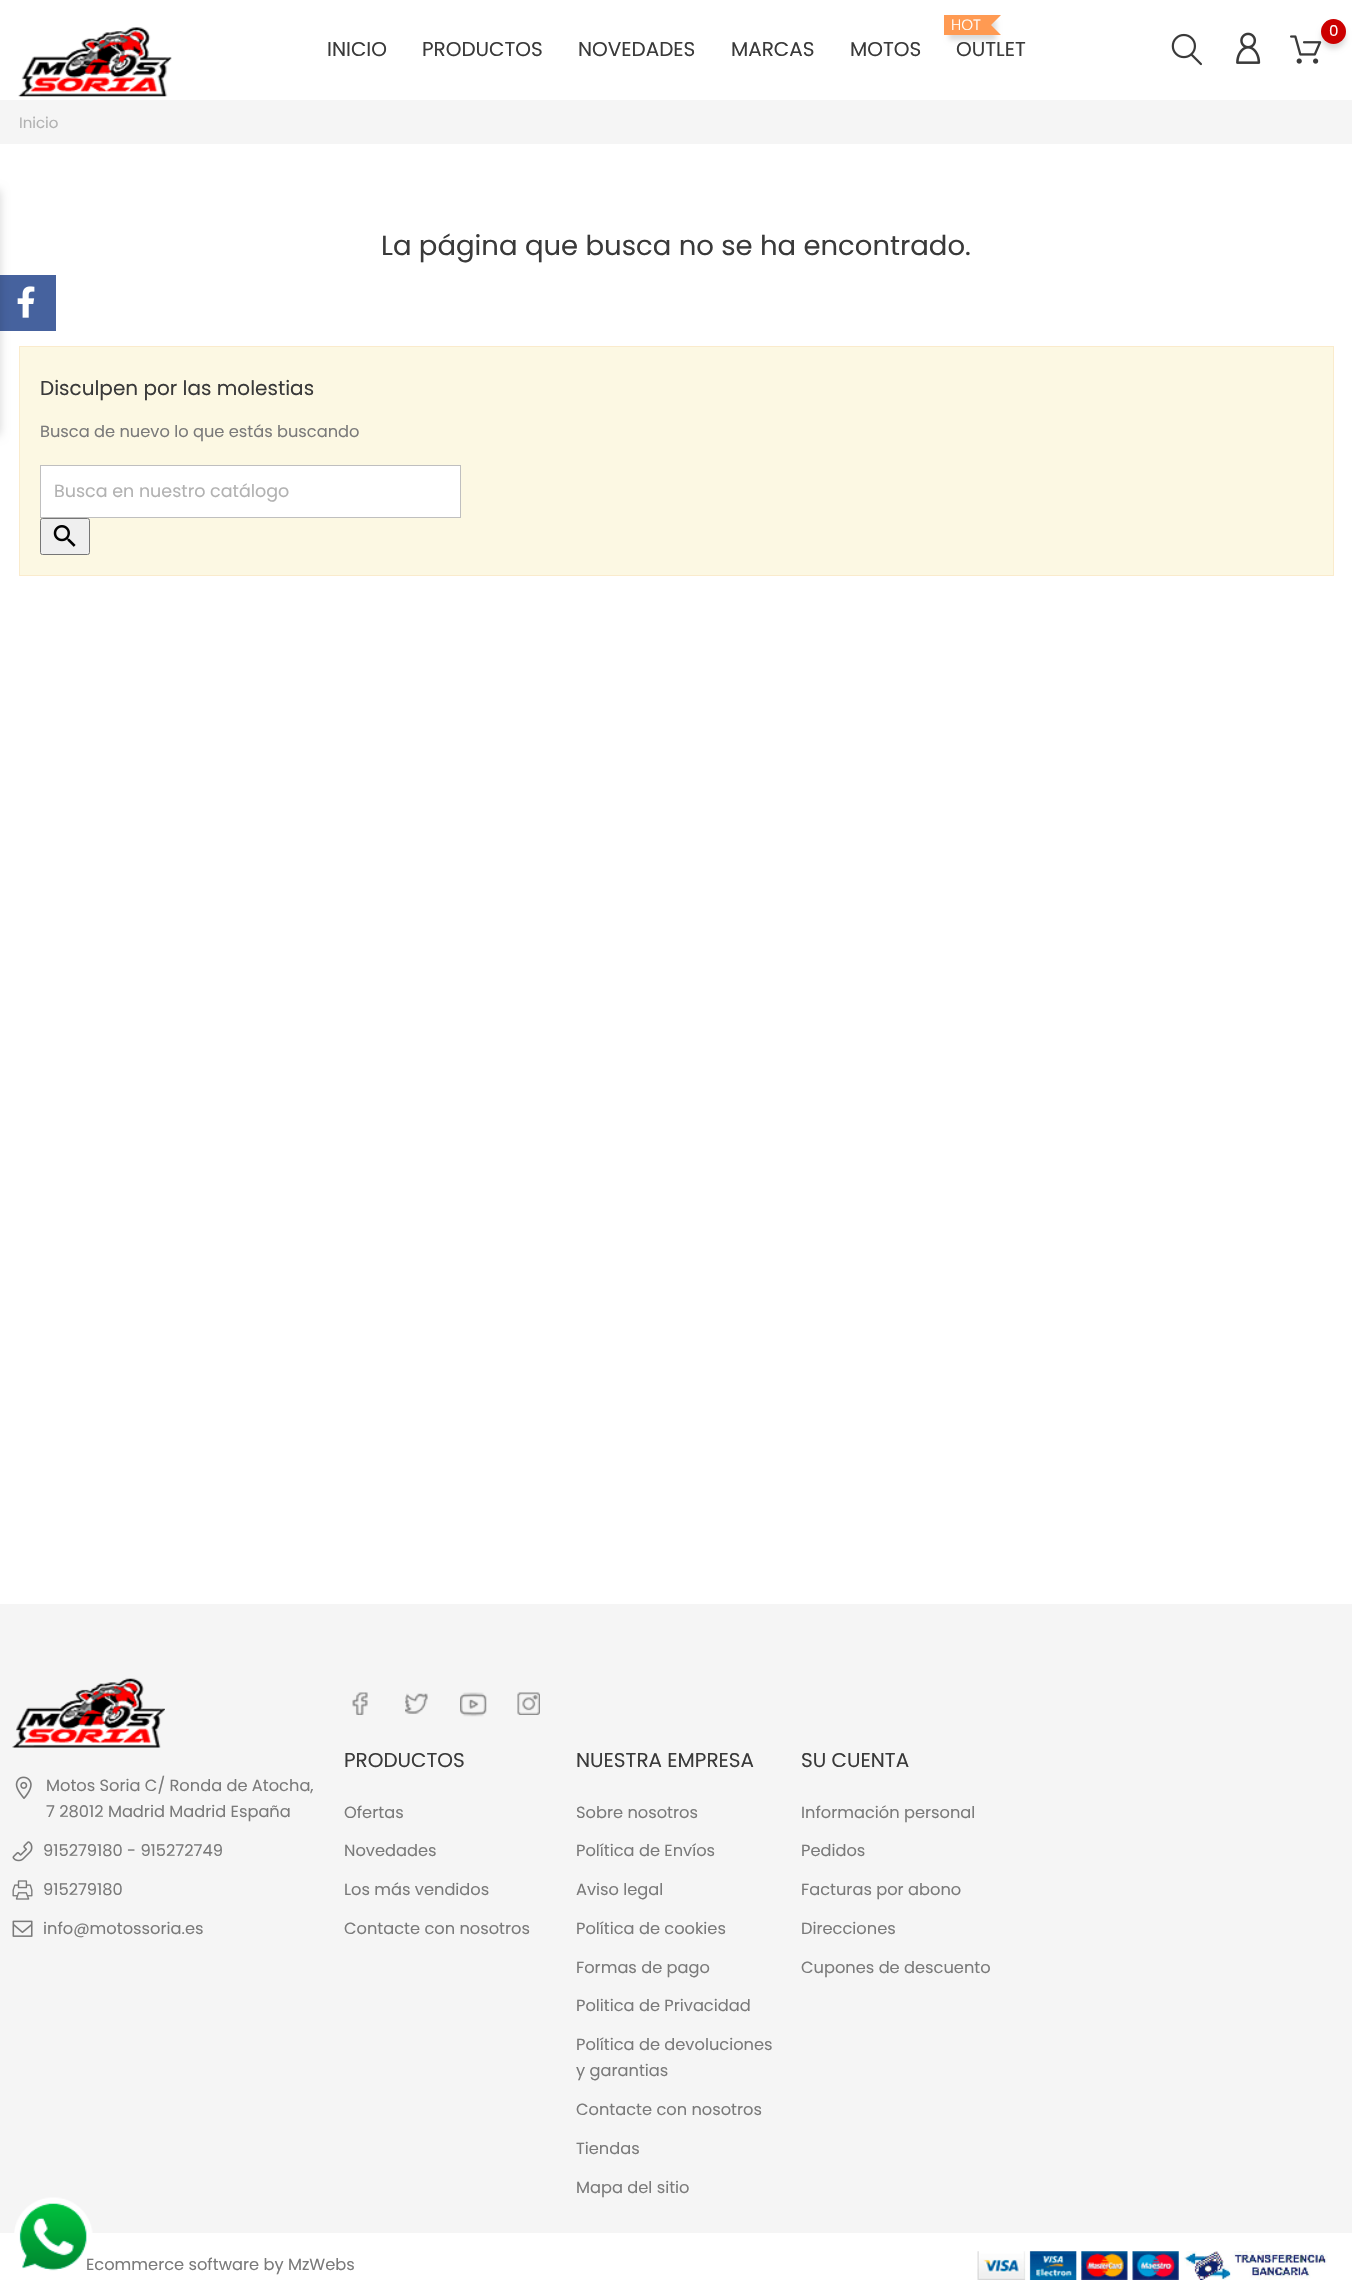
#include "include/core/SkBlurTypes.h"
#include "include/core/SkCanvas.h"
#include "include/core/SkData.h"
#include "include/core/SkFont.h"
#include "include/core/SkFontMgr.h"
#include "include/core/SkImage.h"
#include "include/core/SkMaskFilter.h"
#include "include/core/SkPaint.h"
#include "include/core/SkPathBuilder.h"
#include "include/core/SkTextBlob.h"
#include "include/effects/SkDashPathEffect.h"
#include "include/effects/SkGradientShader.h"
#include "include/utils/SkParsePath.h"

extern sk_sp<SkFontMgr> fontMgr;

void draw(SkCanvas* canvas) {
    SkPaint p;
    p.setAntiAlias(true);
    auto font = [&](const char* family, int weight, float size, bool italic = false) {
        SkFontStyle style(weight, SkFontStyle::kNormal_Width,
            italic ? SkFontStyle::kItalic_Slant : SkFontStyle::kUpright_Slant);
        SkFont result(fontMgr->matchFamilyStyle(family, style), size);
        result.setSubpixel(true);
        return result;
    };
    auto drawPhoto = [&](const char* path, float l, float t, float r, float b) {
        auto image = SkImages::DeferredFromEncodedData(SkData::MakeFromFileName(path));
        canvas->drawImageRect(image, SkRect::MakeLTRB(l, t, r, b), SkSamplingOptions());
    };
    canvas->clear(0xFFFFFFFF);
    drawPhoto("media/1.png", 18, 27, 172, 97);
    auto font1 = font("Poppins", 400, 20);
    p.setColor(0xFF3A3A3A);
    {
        const struct { const char* s; float x, y; } items[] = {
            {"INICIO", 327, 56},
            {"PRODUCTOS", 422, 56},
            {"NOVEDADES", 578, 56},
            {"MARCAS", 731, 56},
            {"MOTOS", 850, 56},
        };
        for (auto [s, x, y] : items) {
            canvas->drawString(s, x, y, font1, p);
        }
    }
    p.setColor(0x24000000);
    p.setMaskFilter(SkMaskFilter::MakeBlur(kNormal_SkBlurStyle, 2.5f));
    canvas->drawRect(SkRect::MakeLTRB(949, 20, 996, 40), p);
    p.setMaskFilter(nullptr);
    p.setColor(0xFFFF9A52);
    canvas->drawRect(SkRect::MakeLTRB(944, 15, 991, 35), p);
    auto font2 = font("Poppins", 300, 15);
    p.setColor(0xFFFFFFFF);
    canvas->drawString("HOT", 951, 30, font2, p);
    p.setColor(0xFFFF9A52);
    canvas->drawPath(SkPathBuilder().moveTo(981, 15).lineTo(1001, 15).lineTo(991, 25).close().moveTo(1001, 35).lineTo(981, 35).lineTo(991, 25).close().detach(), p);
    p.setColor(0xFF3A3A3A);
    canvas->drawString("OUTLET", 956, 56, font1, p);
    drawPhoto("media/2.png", 1171, 33, 1202, 66);
    drawPhoto("media/3.png", 1236, 32, 1261, 64);
    drawPhoto("media/4.png", 1290, 35, 1322, 64);
    p.setColor(0x24000000);
    p.setMaskFilter(SkMaskFilter::MakeBlur(kNormal_SkBlurStyle, 2.5f));
    canvas->drawRoundRect(SkRect::MakeLTRB(1321, 24, 1346, 49), 12.5f, 12.5f, p);
    p.setMaskFilter(nullptr);
    p.setColor(0xFFCC0000);
    canvas->drawCircle(1333.5f, 31.5f, 12.5f, p);
    auto font3 = font("Poppins", 400, 15);
    p.setColor(0xFFFFFFFF);
    canvas->drawString("0", 1329, 36, font3, p);
    p.setColor(0xFFF5F5F5);
    canvas->drawRect(SkRect::MakeLTRB(0, 100, 1352, 144), p);
    p.setColor(0xFFB2B2B2);
    canvas->drawString("Inicio", 19, 128, font3, p);
    p.setColor(0xFF46629E);
    canvas->drawRect(SkRect::MakeLTRB(0, 275, 56, 331), p);
    p.setColor(0x29000000);
    p.setMaskFilter(SkMaskFilter::MakeBlur(kNormal_SkBlurStyle, 5));
    canvas->drawRect(SkRect::MakeLTRB(-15, 190, 0, 435), p);
    p.setMaskFilter(nullptr);
    auto font4 = font("Poppins", 400, 27.5f);
    p.setColor(0xFF3A3A3A);
    canvas->drawString("La página que busca no se ha encontrado.", 381, 255, font4, p);
    p.setColor(0xFFFCF8E3);
    canvas->drawRect(SkRect::MakeLTRB(19.5f, 346.5f, 1333.5f, 575.5f), p);
    p.setStyle(SkPaint::kStroke_Style);
    p.setStrokeWidth(1);
    p.setColor(0xFFFAEBCC);
    canvas->drawRect(SkRect::MakeLTRB(19.5f, 346.5f, 1333.5f, 575.5f), p);
    p.setStyle(SkPaint::kFill_Style);
    p.setColor(0xFF3A3A3A);
    canvas->drawString("Disculpen por las molestias", 40, 395, font1, p);
    auto font5 = font("Poppins", 400, 16.25f);
    p.setColor(0xFF7A7A7A);
    canvas->drawString("Busca de nuevo lo que estás buscando", 40, 437, font5, p);
    p.setColor(0xFFFFFFFF);
    canvas->drawRect(SkRect::MakeLTRB(40.5f, 465.5f, 460.5f, 517.5f), p);
    p.setStyle(SkPaint::kStroke_Style);
    p.setColor(0xFFBFBFBF);
    canvas->drawRect(SkRect::MakeLTRB(40.5f, 465.5f, 460.5f, 517.5f), p);
    auto font6 = font("Poppins", 400, 17.5f);
    p.setStyle(SkPaint::kFill_Style);
    p.setColor(0xFFB2B2B2);
    canvas->drawString("Busca en nuestro catálogo", 54, 497, font6, p);
    p.setColor(0xFFEFEFEF);
    canvas->drawRoundRect(SkRect::MakeLTRB(40.5f, 518.5f, 89.5f, 554.5f), 2, 2, p);
    p.setStyle(SkPaint::kStroke_Style);
    p.setColor(0xFF767676);
    canvas->drawRoundRect(SkRect::MakeLTRB(40.5f, 518.5f, 89.5f, 554.5f), 2, 2, p);
    drawPhoto("media/5.png", 53, 525, 76, 547);
    drawPhoto("media/6.png", 17, 286, 35, 318);
    p.setStyle(SkPaint::kFill_Style);
    p.setColor(0xFFF5F5F5);
    canvas->drawRect(SkRect::MakeLTRB(0, 1604, 1352, 2233), p);
    drawPhoto("media/7.png", 352, 1692, 368, 1715);
    drawPhoto("media/8.png", 405, 1693, 428, 1714);
    drawPhoto("media/9.png", 460, 1692, 487, 1717);
    drawPhoto("media/10.png", 517, 1692, 540, 1715);
    drawPhoto("media/11.png", 12, 1678, 165, 1748);
    drawPhoto("media/12.png", 15, 1776, 32, 1799);
    p.setColor(0xFF7A7A7A);
    canvas->drawString("Motos Soria C/ Ronda de Atocha,", 46, 1791, font5, p);
    canvas->drawString("7 28012 Madrid Madrid España", 46, 1817, font5, p);
    drawPhoto("media/13.png", 12, 1841, 33, 1862);
    canvas->drawString("915279180 - 915272749", 43, 1856, font5, p);
    drawPhoto("media/14.png", 12, 1880, 33, 1900);
    canvas->drawString("915279180", 43, 1895, font5, p);
    drawPhoto("media/15.png", 12, 1920, 33, 1937);
    canvas->drawString("info@motossoria.es", 43, 1934, font5, p);
    p.setColor(0xFF3A3A3A);
    canvas->drawString("PRODUCTOS", 344, 1767, font1, p);
    p.setColor(0xFF7A7A7A);
    {
        const struct { const char* s; float x, y; } items[] = {
            {"Ofertas", 344, 1818},
            {"Novedades", 344, 1856},
            {"Los más vendidos", 344, 1895},
            {"Contacte con nosotros", 344, 1934},
        };
        for (auto [s, x, y] : items) {
            canvas->drawString(s, x, y, font5, p);
        }
    }
    p.setColor(0xFF3A3A3A);
    canvas->drawString("NUESTRA EMPRESA", 576, 1767, font1, p);
    p.setColor(0xFF7A7A7A);
    {
        const struct { const char* s; float x, y; } items[] = {
            {"Sobre nosotros", 576, 1818},
            {"Política de Envíos", 576, 1856},
            {"Aviso legal", 576, 1895},
            {"Política de cookies", 576, 1934},
            {"Formas de pago", 576, 1973},
            {"Politica de Privacidad", 576, 2011},
            {"Política de devoluciones", 576, 2050},
            {"y garantias", 576, 2076},
            {"Contacte con nosotros", 576, 2115},
            {"Tiendas", 576, 2154},
            {"Mapa del sitio", 576, 2193},
        };
        for (auto [s, x, y] : items) {
            canvas->drawString(s, x, y, font5, p);
        }
    }
    p.setColor(0xFF3A3A3A);
    canvas->drawString("SU CUENTA", 801, 1767, font1, p);
    p.setColor(0xFF7A7A7A);
    {
        const struct { const char* s; float x, y; } items[] = {
            {"Información personal", 801, 1818},
            {"Pedidos", 801, 1856},
            {"Facturas por abono", 801, 1895},
            {"Direcciones", 801, 1934},
            {"Cupones de descuento", 801, 1973},
            {"Ecommerce software by MzWebs", 86, 2270},
        };
        for (auto [s, x, y] : items) {
            canvas->drawString(s, x, y, font5, p);
        }
    }
    drawPhoto("media/16.png", 14, 2197, 93, 2271);
    drawPhoto("media/17.png", 977, 2251, 1328, 2280);
}
